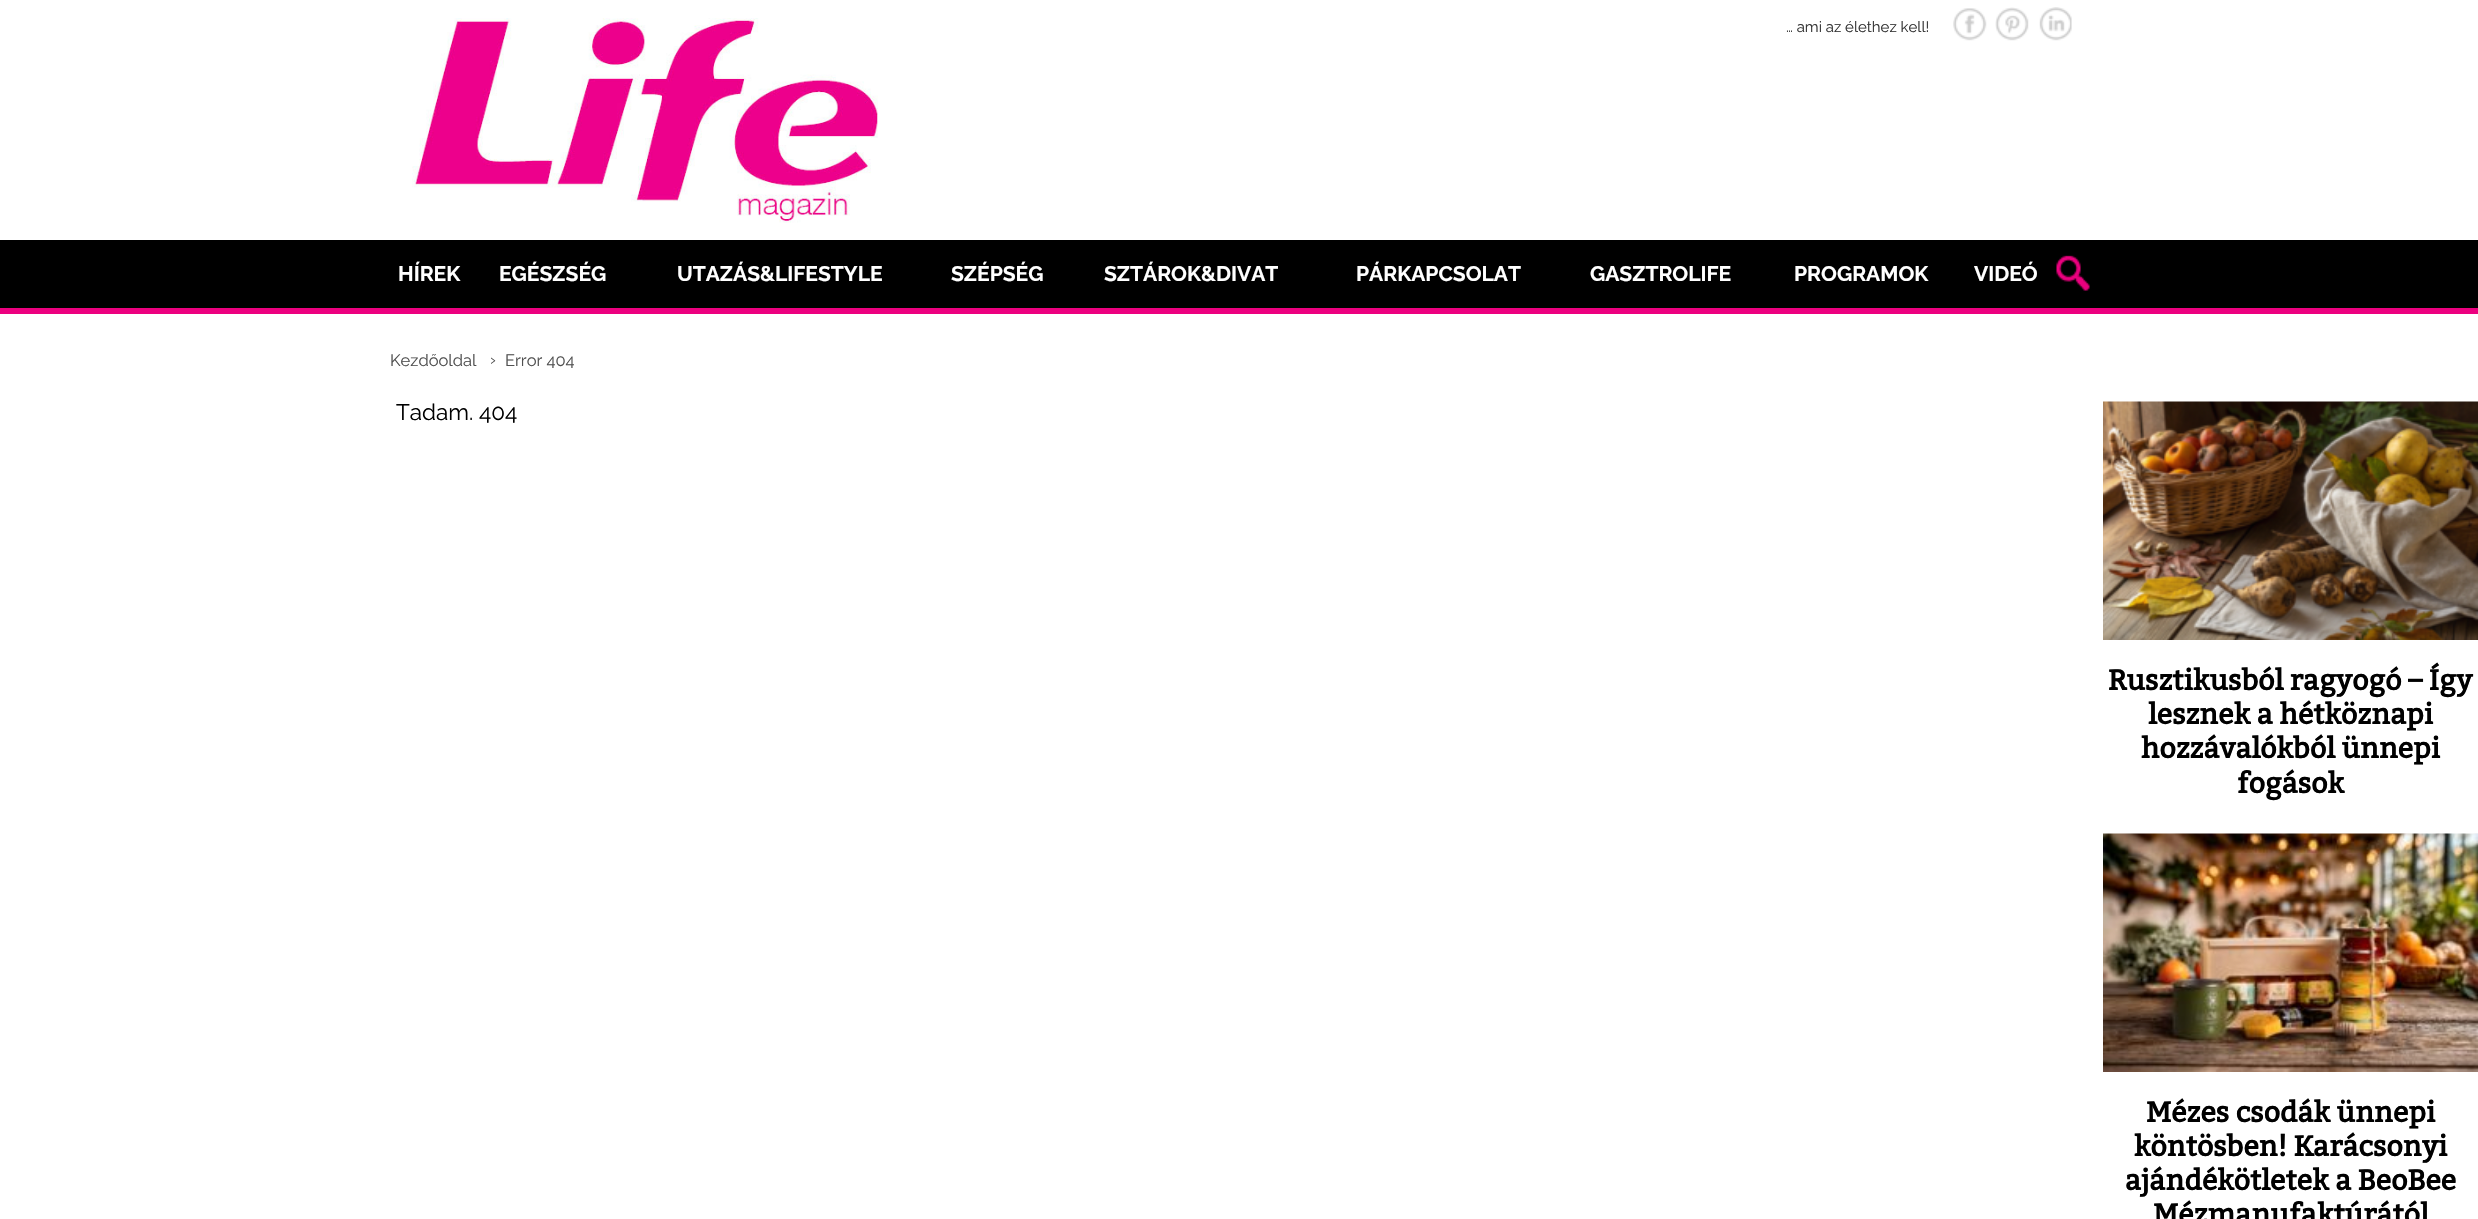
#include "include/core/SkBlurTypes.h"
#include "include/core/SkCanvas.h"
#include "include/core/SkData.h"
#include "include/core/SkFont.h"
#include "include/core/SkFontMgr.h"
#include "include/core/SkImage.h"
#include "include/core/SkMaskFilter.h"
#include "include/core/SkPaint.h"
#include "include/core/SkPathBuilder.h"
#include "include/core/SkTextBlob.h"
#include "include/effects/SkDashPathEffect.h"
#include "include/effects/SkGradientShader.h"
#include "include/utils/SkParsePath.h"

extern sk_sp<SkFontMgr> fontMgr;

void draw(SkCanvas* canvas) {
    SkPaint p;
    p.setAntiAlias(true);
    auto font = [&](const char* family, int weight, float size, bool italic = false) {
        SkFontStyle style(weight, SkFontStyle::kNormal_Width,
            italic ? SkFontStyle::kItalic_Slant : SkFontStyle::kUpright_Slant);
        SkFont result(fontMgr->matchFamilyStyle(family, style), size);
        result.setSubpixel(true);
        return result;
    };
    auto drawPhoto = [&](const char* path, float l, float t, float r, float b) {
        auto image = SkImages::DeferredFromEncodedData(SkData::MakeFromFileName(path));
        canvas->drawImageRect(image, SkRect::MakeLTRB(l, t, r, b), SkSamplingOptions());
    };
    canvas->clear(0xFFFFFFFF);
    drawPhoto("media/1.png", 412, 18, 878, 223);
    auto font1 = font("Raleway", 400, 15);
    p.setColor(0xFF333333);
    canvas->drawString("… ami az élethez kell!", 1786, 32, font1, p);
    drawPhoto("media/2.png", 1953, 8, 1987, 41);
    drawPhoto("media/3.png", 1995, 7, 2029, 41);
    drawPhoto("media/4.png", 2039, 7, 2072, 41);
    p.setColor(0xFF000000);
    canvas->drawRect(SkRect::MakeLTRB(0, 240, 2478, 308), p);
    p.setColor(0xFFEC007F);
    canvas->drawRect(SkRect::MakeLTRB(0, 308, 2478, 314), p);
    auto font2 = font("Raleway", 700, 21);
    p.setColor(0xFFFFFFFF);
    {
        const struct { const char* s; float x, y; } items[] = {
            {"HÍREK", 398, 281},
            {"EGÉSZSÉG", 499, 281},
            {"UTAZÁS&LIFESTYLE", 677, 281},
            {"SZÉPSÉG", 951, 281},
            {"SZTÁROK&DIVAT", 1104, 281},
            {"PÁRKAPCSOLAT", 1356, 281},
            {"GASZTROLIFE", 1590, 281},
            {"PROGRAMOK", 1794, 281},
            {"VIDEÓ", 1974, 281},
        };
        for (auto [s, x, y] : items) {
            canvas->drawString(s, x, y, font2, p);
        }
    }
    drawPhoto("media/5.png", 2056, 255, 2090, 291);
    auto font3 = font("Raleway", 400, 16.5f);
    p.setColor(0xFF505050);
    {
        const struct { const char* s; float x, y; } items[] = {
            {"Kezdőoldal", 390, 366},
            {"›", 490, 365},
            {"Error 404", 505, 366},
        };
        for (auto [s, x, y] : items) {
            canvas->drawString(s, x, y, font3, p);
        }
    }
    auto font4 = font("Raleway", 400, 22.5f);
    p.setColor(0xFF000000);
    canvas->drawString("Tadam. 404", 396, 420, font4, p);
    drawPhoto("media/6.png", 2103, 401, 2478, 640);
    auto font5 = font("Bitter", 700, 28.5f);
    {
        const struct { const char* s; float x, y; } items[] = {
            {"Rusztikusból ragyogó – Így", 2108, 690},
            {"lesznek a hétköznapi", 2148, 724},
            {"hozzávalókból ünnepi", 2141, 758},
            {"fogások", 2237, 793},
        };
        for (auto [s, x, y] : items) {
            canvas->drawString(s, x, y, font5, p);
        }
    }
    drawPhoto("media/7.png", 2103, 833, 2478, 1072);
    {
        const struct { const char* s; float x, y; } items[] = {
            {"Mézes csodák ünnepi", 2146, 1122},
            {"köntösben! Karácsonyi", 2134, 1156},
            {"ajándékötletek a BeoBee", 2125, 1190},
            {"Mézmanufaktúrától", 2153, 1224},
        };
        for (auto [s, x, y] : items) {
            canvas->drawString(s, x, y, font5, p);
        }
    }
}
